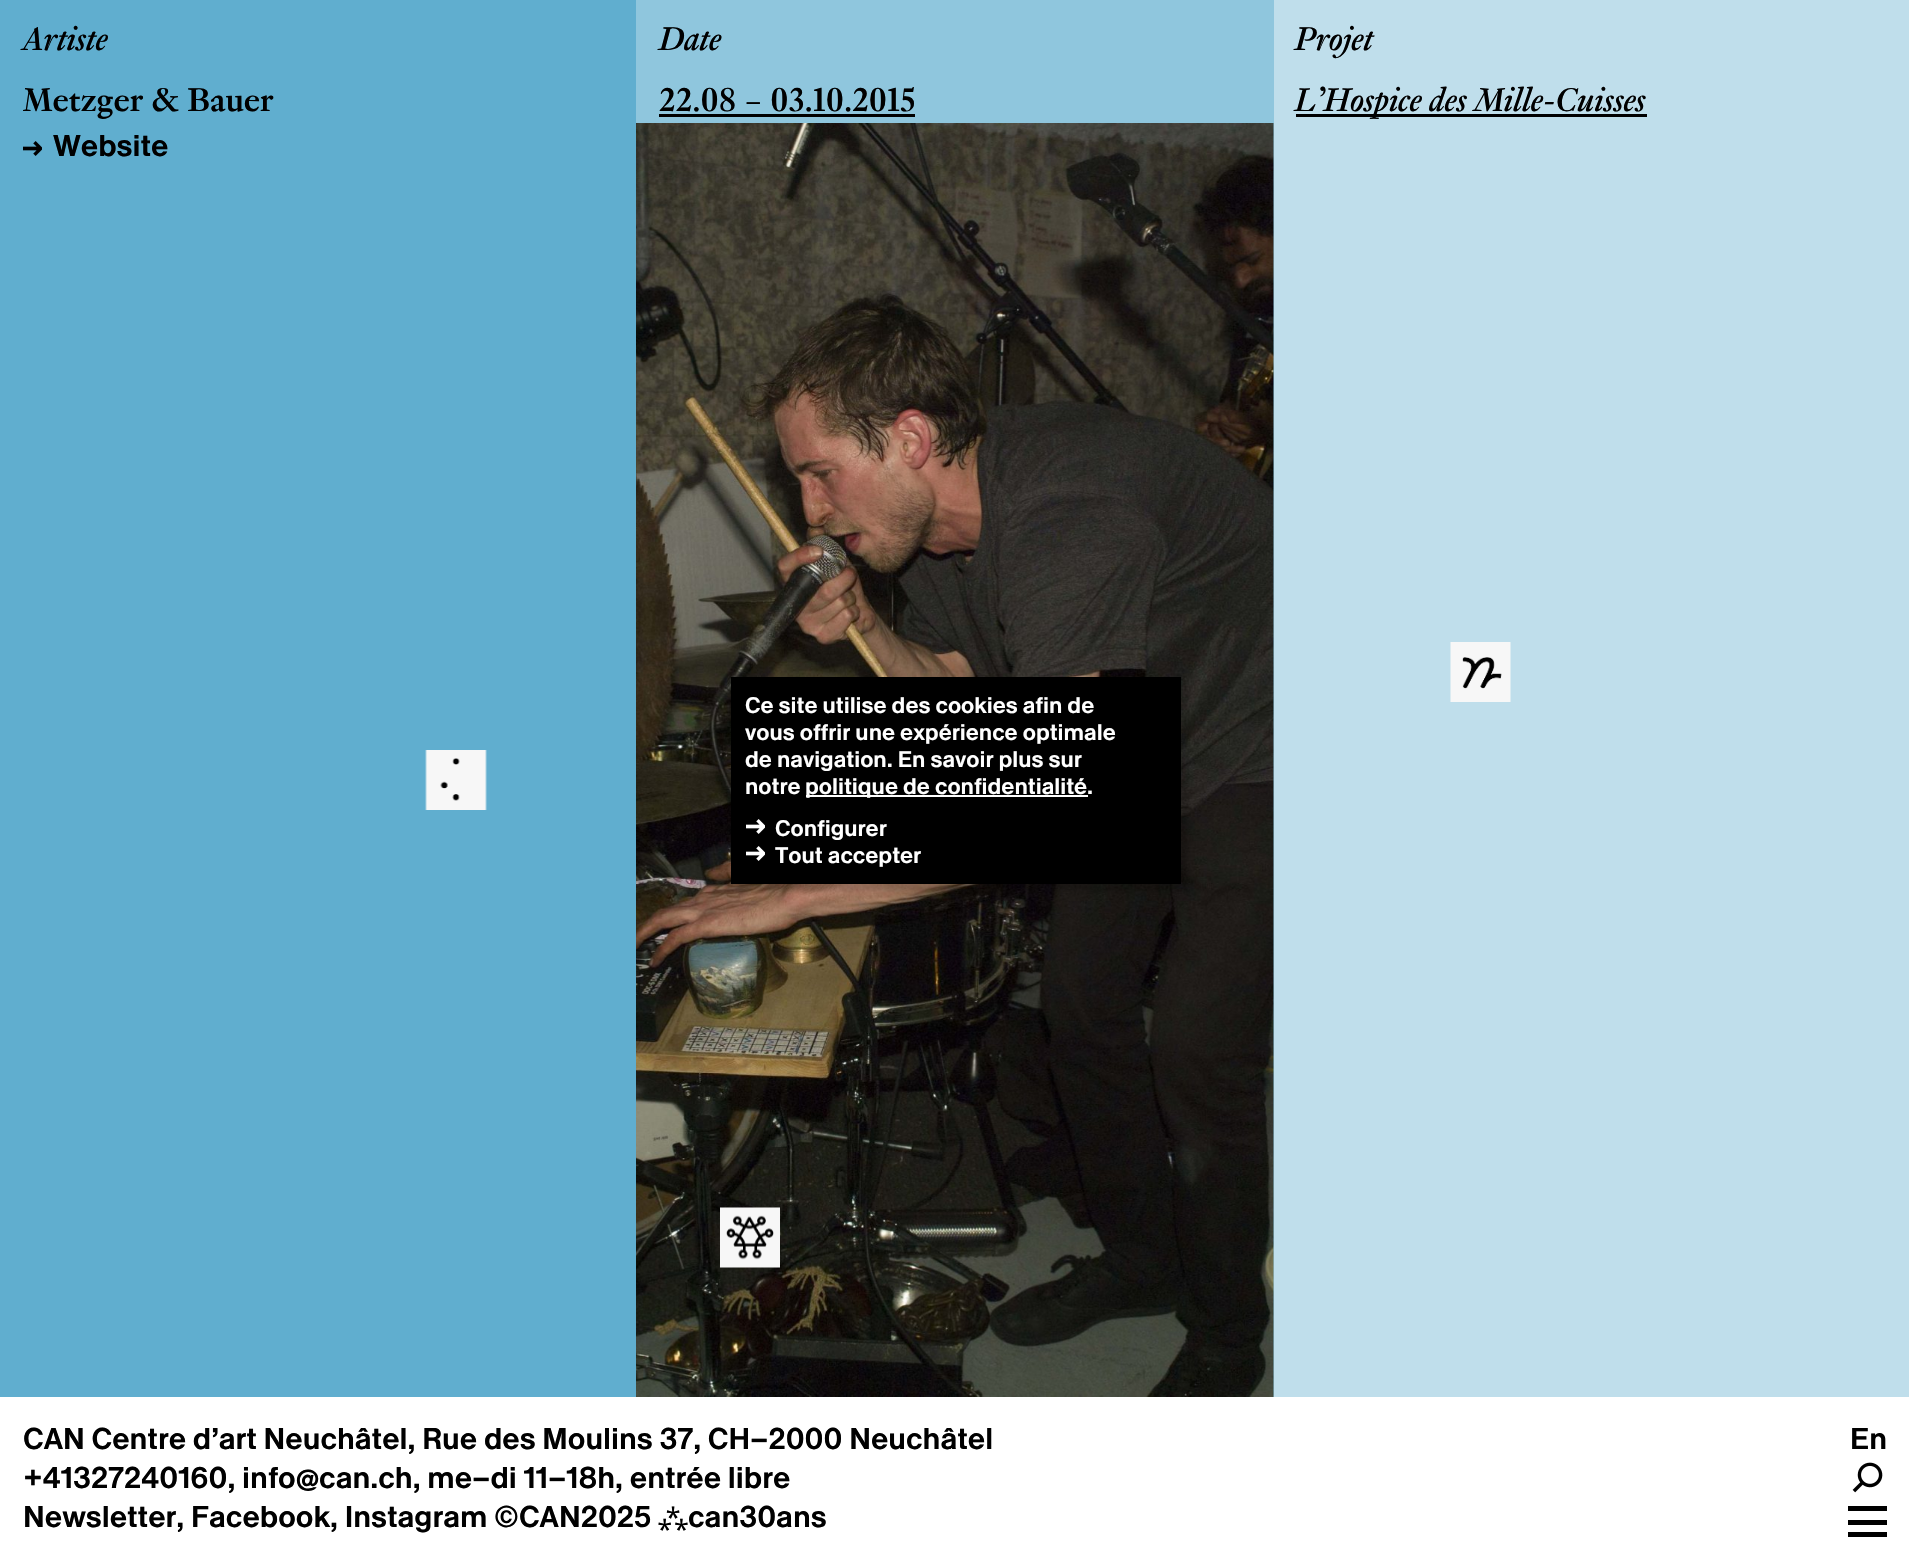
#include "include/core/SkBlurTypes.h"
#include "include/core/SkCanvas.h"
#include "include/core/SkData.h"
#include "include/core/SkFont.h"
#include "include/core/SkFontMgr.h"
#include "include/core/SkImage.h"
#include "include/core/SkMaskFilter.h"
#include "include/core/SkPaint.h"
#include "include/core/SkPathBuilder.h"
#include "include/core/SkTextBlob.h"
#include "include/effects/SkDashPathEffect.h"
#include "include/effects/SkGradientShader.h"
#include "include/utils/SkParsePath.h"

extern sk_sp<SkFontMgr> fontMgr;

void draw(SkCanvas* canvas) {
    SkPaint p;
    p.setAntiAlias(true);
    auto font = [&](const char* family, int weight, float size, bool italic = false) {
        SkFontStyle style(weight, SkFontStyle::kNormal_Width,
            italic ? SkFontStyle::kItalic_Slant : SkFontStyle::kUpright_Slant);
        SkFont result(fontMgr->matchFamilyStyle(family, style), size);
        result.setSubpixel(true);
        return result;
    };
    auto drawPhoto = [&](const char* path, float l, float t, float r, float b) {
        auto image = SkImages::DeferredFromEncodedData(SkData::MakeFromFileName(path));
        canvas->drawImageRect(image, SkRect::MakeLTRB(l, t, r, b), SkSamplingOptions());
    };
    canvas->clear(0xFF60AECF);
    auto font1 = font("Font", 700, 36, true);
    p.setColor(0xFF000000);
    canvas->drawString("Artiste", 23, 50, font1, p);
    auto font2 = font("Font", 700, 36);
    canvas->drawString("Metzger & Bauer", 23, 111, font2, p);
    drawPhoto("media/1.png", 23, 141, 42, 156);
    auto font3 = font("Font", 500, 30);
    canvas->drawString("Website", 53, 156, font3, p);
    drawPhoto("media/2.png", 425, 750, 487, 810);
    p.setColor(0xFF8FC6DD);
    canvas->drawRect(SkRect::MakeLTRB(636, 0, 1274, 1397), p);
    p.setColor(0xFF000000);
    canvas->drawString("Date", 659, 50, font1, p);
    canvas->drawString("22.08 – 03.10.2015", 659, 111, font2, p);
    canvas->drawRect(SkRect::MakeLTRB(659, 114, 915, 117), p);
    drawPhoto("media/3.png", 636, 123, 1274, 1397);
    drawPhoto("media/4.png", 720, 1207, 780, 1268);
    p.setColor(0xFFBFDEEB);
    canvas->drawRect(SkRect::MakeLTRB(1274, 0, 1909, 1397), p);
    p.setColor(0xFF000000);
    canvas->drawString("Projet", 1295, 50, font1, p);
    canvas->drawRect(SkRect::MakeLTRB(1296, 114, 1647, 117), p);
    canvas->drawString("L’Hospice des Mille-Cuisses", 1295, 111, font1, p);
    drawPhoto("media/5.png", 1450, 642, 1511, 702);
    p.setColor(0x29000000);
    p.setMaskFilter(SkMaskFilter::MakeBlur(kNormal_SkBlurStyle, 2));
    canvas->drawRect(SkRect::MakeLTRB(738, 684, 1188, 891), p);
    p.setMaskFilter(nullptr);
    p.setColor(0xFF000000);
    canvas->drawRect(SkRect::MakeLTRB(731, 677, 1181, 884), p);
    auto font4 = font("Font", 500, 22.5f);
    p.setColor(0xFFFFFFFF);
    {
        const struct { const char* s; float x, y; } items[] = {
            {"Ce site utilise des cookies afin de", 745, 713},
            {"vous offrir une expérience optimale", 745, 740},
            {"de navigation. En savoir plus sur", 745, 767},
            {"notre", 745, 794},
        };
        for (auto [s, x, y] : items) {
            canvas->drawString(s, x, y, font4, p);
        }
    }
    canvas->drawRect(SkRect::MakeLTRB(806, 795, 1088, 797), p);
    canvas->drawString("politique de confidentialité.", 805, 794, font4, p);
    drawPhoto("media/6.png", 746, 819, 765, 834);
    canvas->drawString("Configurer", 775, 836, font4, p);
    drawPhoto("media/6.png", 746, 846, 765, 861);
    canvas->drawString("Tout accepter", 775, 863, font4, p);
    canvas->drawRect(SkRect::MakeLTRB(0, 1397, 1909, 1559), p);
    p.setColor(0xFF000000);
    {
        const struct { const char* s; float x, y; } items[] = {
            {"CAN Centre d’art Neuchâtel, Rue des Moulins 37, CH–2000 Neuchâtel", 23, 1449},
            {"+41327240160, info@can.ch, me–di 11–18h, entrée libre", 23, 1488},
            {"Newsletter, Facebook, Instagram ©CAN2025", 23, 1527},
        };
        for (auto [s, x, y] : items) {
            canvas->drawString(s, x, y, font3, p);
        }
    }
    auto font5 = font("Noto Sans", 400, 27);
    canvas->drawString("⁂", 658, 1527, font5, p);
    canvas->drawString("can30ans", 688, 1527, font3, p);
    canvas->drawString("En", 1850, 1449, font3, p);
    drawPhoto("media/7.png", 1852, 1462, 1883, 1493);
    {
        const struct { float l, t, r, b; SkColor color; } items[] = {
            {1848, 1506, 1887, 1511, 0xFF000000},
            {1848, 1520, 1887, 1525, 0xFF000000},
            {1848, 1532, 1887, 1537, 0xFF000000},
        };
        for (auto [l, t, r, b, color] : items) {
            p.setColor(color);
            canvas->drawRect(SkRect::MakeLTRB(l, t, r, b), p);
        }
    }
}
